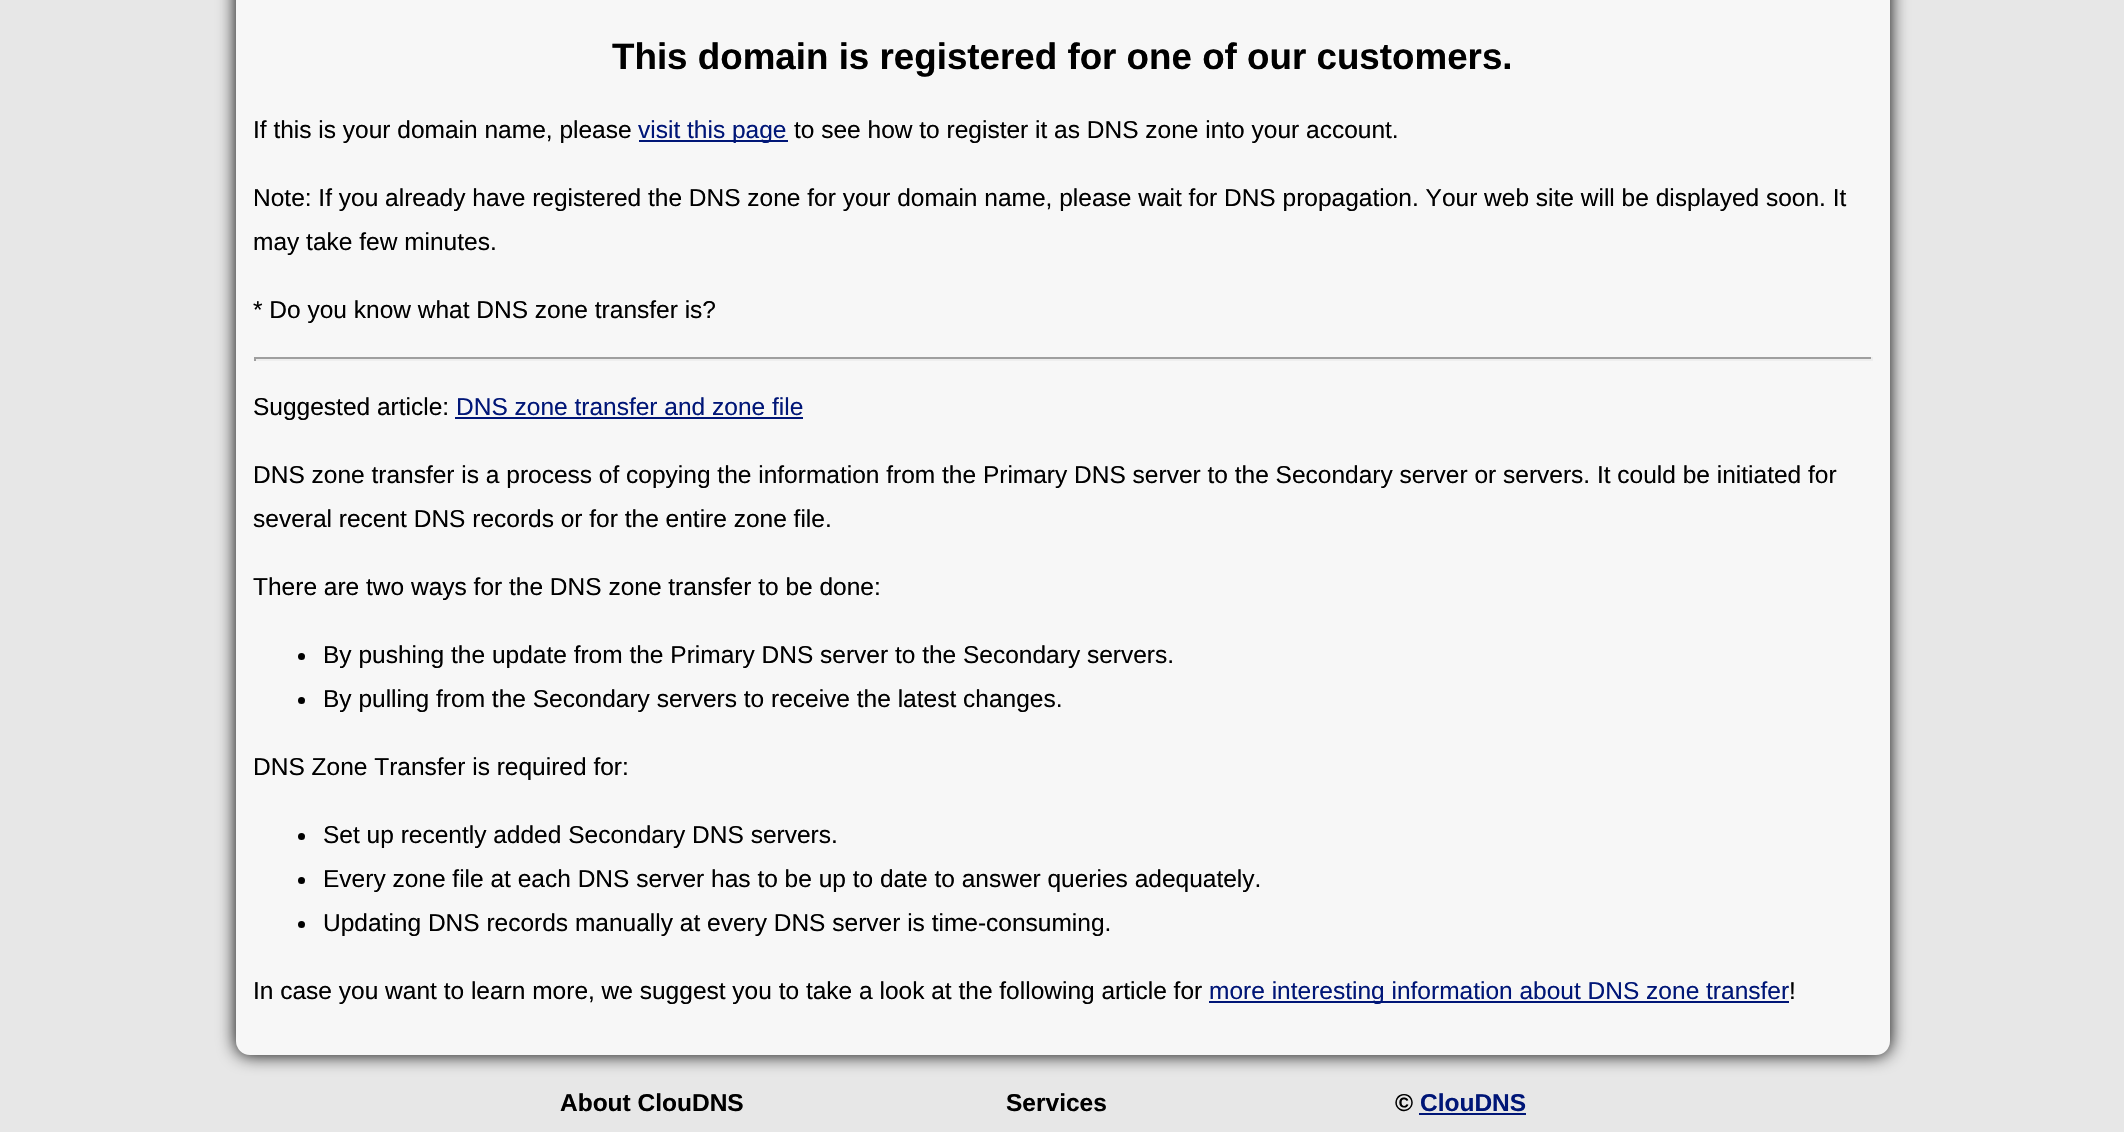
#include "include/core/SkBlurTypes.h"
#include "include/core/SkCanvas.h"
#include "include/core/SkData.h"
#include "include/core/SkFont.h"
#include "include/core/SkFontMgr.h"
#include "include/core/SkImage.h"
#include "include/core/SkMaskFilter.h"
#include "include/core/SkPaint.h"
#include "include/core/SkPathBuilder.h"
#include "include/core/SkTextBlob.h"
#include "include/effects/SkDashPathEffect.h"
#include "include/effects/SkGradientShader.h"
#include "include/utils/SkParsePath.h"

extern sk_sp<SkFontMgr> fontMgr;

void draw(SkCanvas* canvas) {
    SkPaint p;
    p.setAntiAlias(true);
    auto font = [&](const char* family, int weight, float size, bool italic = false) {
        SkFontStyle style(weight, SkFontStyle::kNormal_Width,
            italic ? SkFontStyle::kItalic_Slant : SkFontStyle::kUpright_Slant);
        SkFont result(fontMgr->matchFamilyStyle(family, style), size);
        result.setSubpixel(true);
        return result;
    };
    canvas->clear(0xFFE7E7E7);
    p.setColor(0xFF000000);
    p.setMaskFilter(SkMaskFilter::MakeBlur(kNormal_SkBlurStyle, 9));
    canvas->drawRoundRect(SkRect::MakeLTRB(236, -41, 1890, 1055), 14, 14, p);
    p.setMaskFilter(nullptr);
    p.setColor(0xFFF7F7F7);
    canvas->drawRoundRect(SkRect::MakeLTRB(236, -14, 1890, 1055), 14, 14, p);
    auto font1 = font("Liberation Sans", 700, 36.75f);
    p.setColor(0xFF000000);
    canvas->drawString("This domain is registered for one of our customers.", 612, 69, font1, p);
    auto font2 = font("Liberation Sans", 400, 24.5f);
    canvas->drawString("If this is your domain name, please", 253, 138, font2, p);
    p.setColor(0xFF001677);
    canvas->drawRect(SkRect::MakeLTRB(639, 140, 788, 142), p);
    canvas->drawString("visit this page", 638, 138, font2, p);
    p.setColor(0xFF000000);
    {
        const struct { const char* s; float x, y; } items[] = {
            {"to see how to register it as DNS zone into your account.", 794, 138},
            {"Note: If you already have registered the DNS zone for your domain name, please wait for DNS propagation. Your web site will be displayed soon. It", 253, 206},
            {"may take few minutes.", 253, 250},
            {"* Do you know what DNS zone transfer is?", 253, 318},
        };
        for (auto [s, x, y] : items) {
            canvas->drawString(s, x, y, font2, p);
        }
    }
    {
        const struct { float l, t, r, b; SkColor color; } items[] = {
            {254, 357, 1873, 359, 0xFF9F9F9F},
            {1871, 357, 1873, 361, 0xFFEEEEEE},
            {254, 359, 1873, 361, 0xFFEEEEEE},
            {254, 357, 256, 361, 0xFF9F9F9F},
        };
        for (auto [l, t, r, b, color] : items) {
            p.setColor(color);
            canvas->drawRect(SkRect::MakeLTRB(l, t, r, b), p);
        }
    }
    p.setColor(0xFF000000);
    canvas->drawString("Suggested article:", 253, 415, font2, p);
    p.setColor(0xFF001677);
    canvas->drawString("DNS zone transfer and zone file", 456, 415, font2, p);
    canvas->drawRect(SkRect::MakeLTRB(455, 417, 803, 419), p);
    p.setColor(0xFF000000);
    {
        const struct { const char* s; float x, y; } items[] = {
            {"DNS zone transfer is a process of copying the information from the Primary DNS server to the Secondary server or servers. It could be initiated for", 253, 483},
            {"several recent DNS records or for the entire zone file.", 253, 527},
            {"There are two ways for the DNS zone transfer to be done:", 253, 595},
        };
        for (auto [s, x, y] : items) {
            canvas->drawString(s, x, y, font2, p);
        }
    }
    canvas->drawCircle(301.5f, 656.5f, 3.5f, p);
    canvas->drawString("By pushing the update from the Primary DNS server to the Secondary servers.", 323, 663, font2, p);
    canvas->drawCircle(301.5f, 700.5f, 3.5f, p);
    canvas->drawString("By pulling from the Secondary servers to receive the latest changes.", 323, 707, font2, p);
    canvas->drawString("DNS Zone Transfer is required for:", 253, 775, font2, p);
    canvas->drawCircle(301.5f, 836.5f, 3.5f, p);
    canvas->drawString("Set up recently added Secondary DNS servers.", 323, 843, font2, p);
    canvas->drawCircle(301.5f, 880.5f, 3.5f, p);
    canvas->drawString("Every zone file at each DNS server has to be up to date to answer queries adequately.", 323, 887, font2, p);
    canvas->drawCircle(301.5f, 924.5f, 3.5f, p);
    canvas->drawString("Updating DNS records manually at every DNS server is time-consuming.", 323, 931, font2, p);
    canvas->drawString("In case you want to learn more, we suggest you to take a look at the following article for", 253, 999, font2, p);
    p.setColor(0xFF001677);
    canvas->drawRect(SkRect::MakeLTRB(1209, 1001, 1789, 1003), p);
    canvas->drawString("more interesting information about DNS zone transfer", 1209, 999, font2, p);
    p.setColor(0xFF000000);
    canvas->drawString("!", 1789, 999, font2, p);
    auto font3 = font("Liberation Sans", 700, 24.5f);
    {
        const struct { const char* s; float x, y; } items[] = {
            {"About ClouDNS", 560, 1111},
            {"Services", 1006, 1111},
            {"©", 1395, 1111},
        };
        for (auto [s, x, y] : items) {
            canvas->drawString(s, x, y, font3, p);
        }
    }
    p.setColor(0xFF001677);
    canvas->drawString("ClouDNS", 1420, 1111, font3, p);
    canvas->drawRect(SkRect::MakeLTRB(1419, 1113, 1526, 1115), p);
}
